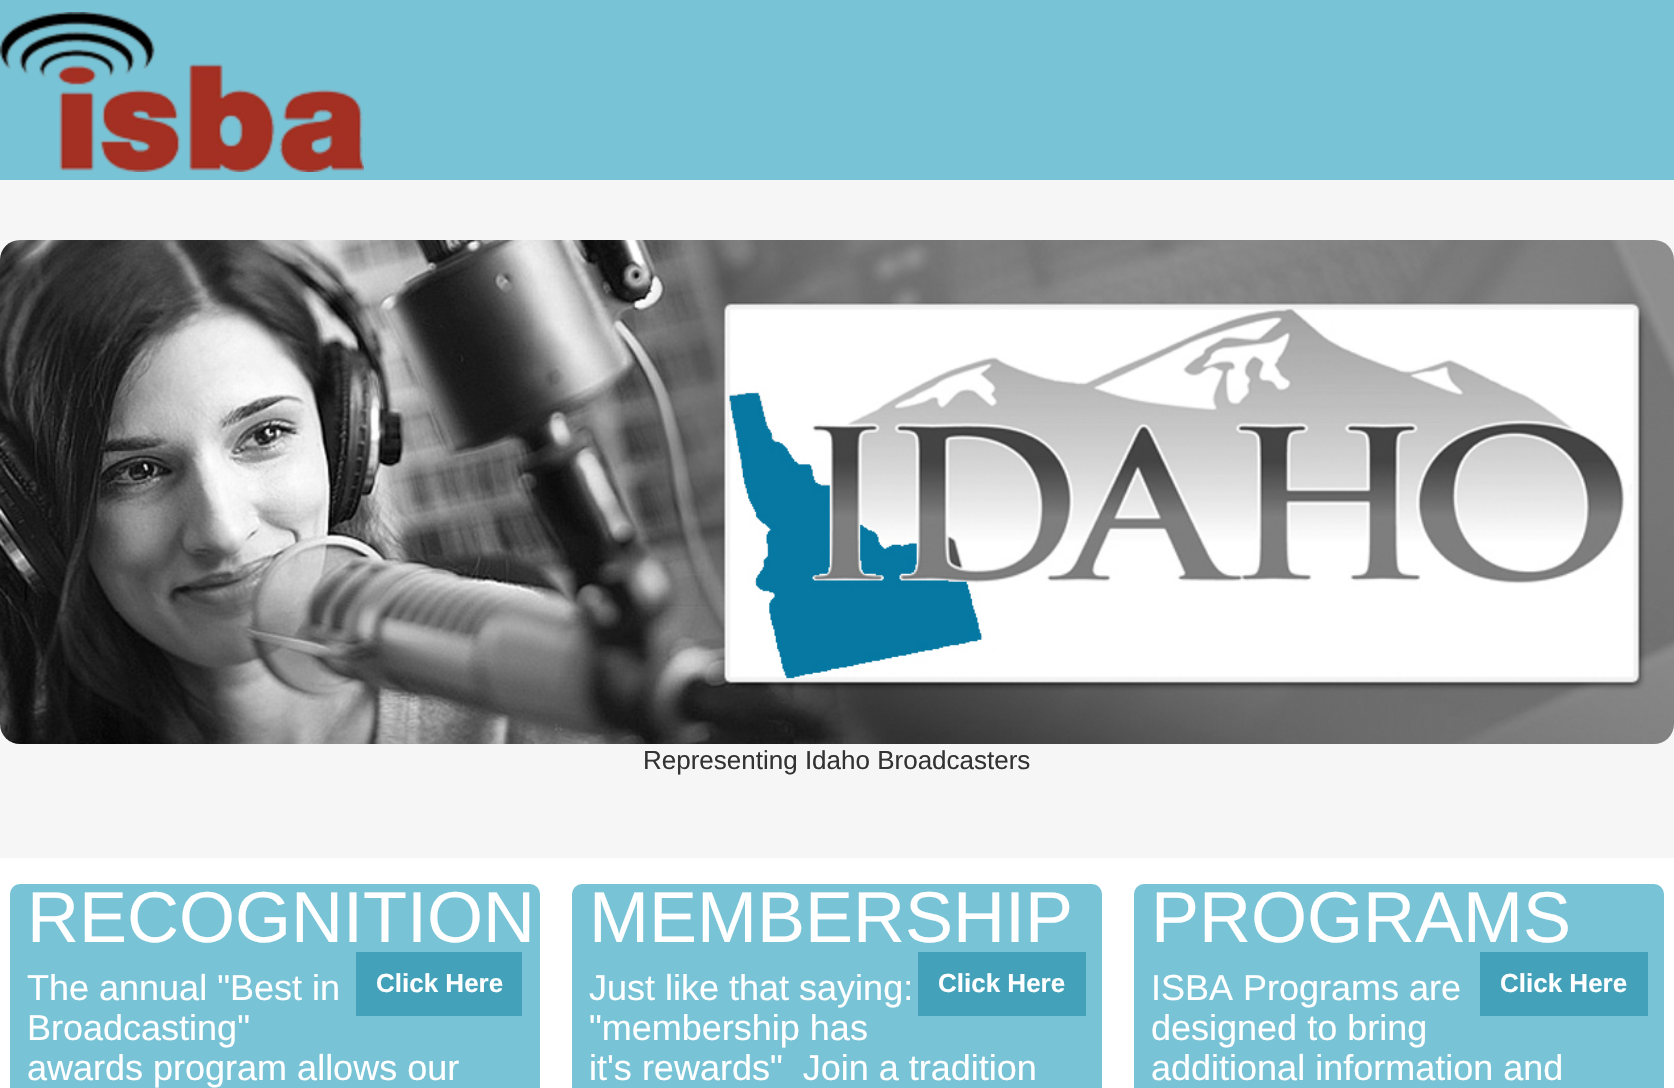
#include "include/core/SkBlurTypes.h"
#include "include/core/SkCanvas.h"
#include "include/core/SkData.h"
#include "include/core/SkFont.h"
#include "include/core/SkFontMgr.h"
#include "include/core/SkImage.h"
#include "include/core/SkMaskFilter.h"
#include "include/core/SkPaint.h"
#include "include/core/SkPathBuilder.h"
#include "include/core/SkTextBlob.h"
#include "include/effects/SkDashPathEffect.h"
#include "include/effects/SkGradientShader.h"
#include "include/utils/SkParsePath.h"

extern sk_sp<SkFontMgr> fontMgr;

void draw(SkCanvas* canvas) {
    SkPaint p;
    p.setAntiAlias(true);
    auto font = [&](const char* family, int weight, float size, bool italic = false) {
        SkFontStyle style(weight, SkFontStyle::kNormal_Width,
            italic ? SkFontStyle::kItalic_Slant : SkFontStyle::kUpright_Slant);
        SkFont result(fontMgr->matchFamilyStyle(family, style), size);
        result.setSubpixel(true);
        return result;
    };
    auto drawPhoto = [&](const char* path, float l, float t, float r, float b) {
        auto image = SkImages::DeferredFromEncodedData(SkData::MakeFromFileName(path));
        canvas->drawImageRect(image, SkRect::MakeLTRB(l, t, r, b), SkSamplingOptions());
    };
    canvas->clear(0xFFFFFFFF);
    p.setColor(0xFF78C3D6);
    canvas->drawRect(SkRect::MakeLTRB(0, 0, 1674, 180), p);
    drawPhoto("media/1.png", 0, 12, 364, 172);
    p.setColor(0xFFF6F6F6);
    canvas->drawRect(SkRect::MakeLTRB(0, 180, 1674, 858), p);
    drawPhoto("media/2.png", 0, 240, 1674, 744);
    auto font1 = font("Liberation Sans", 400, 26);
    p.setColor(0xFF333333);
    canvas->drawString("Representing Idaho Broadcasters", 643, 769, font1, p);
    p.setColor(0xFF78C3D6);
    canvas->drawRoundRect(SkRect::MakeLTRB(10, 884, 540, 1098), 10, 10, p);
    auto font2 = font("Liberation Sans", 400, 72);
    p.setColor(0xFFFFFFFF);
    canvas->drawString("RECOGNITION", 27, 942, font2, p);
    p.setColor(0xFF43A2BA);
    canvas->drawRect(SkRect::MakeLTRB(356, 952, 522, 1016), p);
    auto font3 = font("Liberation Sans", 700, 26);
    p.setColor(0xFFFFFFFF);
    canvas->drawString("Click Here", 376, 992, font3, p);
    auto font4 = font("Liberation Sans", 400, 36);
    {
        const struct { const char* s; float x, y; } items[] = {
            {"The annual \"Best in", 27, 1000},
            {"Broadcasting\"", 27, 1040},
            {"awards program allows our", 27, 1080},
        };
        for (auto [s, x, y] : items) {
            canvas->drawString(s, x, y, font4, p);
        }
    }
    p.setColor(0xFF78C3D6);
    canvas->drawRoundRect(SkRect::MakeLTRB(572, 884, 1102, 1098), 10, 10, p);
    p.setColor(0xFFFFFFFF);
    canvas->drawString("MEMBERSHIP", 589, 942, font2, p);
    p.setColor(0xFF43A2BA);
    canvas->drawRect(SkRect::MakeLTRB(918, 952, 1086, 1016), p);
    p.setColor(0xFFFFFFFF);
    canvas->drawString("Click Here", 938, 992, font3, p);
    {
        const struct { const char* s; float x, y; } items[] = {
            {"Just like that saying:", 589, 1000},
            {"\"membership has", 589, 1040},
            {"it's rewards\"  Join a tradition", 589, 1080},
        };
        for (auto [s, x, y] : items) {
            canvas->drawString(s, x, y, font4, p);
        }
    }
    p.setColor(0xFF78C3D6);
    canvas->drawRoundRect(SkRect::MakeLTRB(1134, 884, 1664, 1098), 10, 10, p);
    p.setColor(0xFFFFFFFF);
    canvas->drawString("PROGRAMS", 1151, 942, font2, p);
    p.setColor(0xFF43A2BA);
    canvas->drawRect(SkRect::MakeLTRB(1480, 952, 1648, 1016), p);
    p.setColor(0xFFFFFFFF);
    canvas->drawString("Click Here", 1500, 992, font3, p);
    {
        const struct { const char* s; float x, y; } items[] = {
            {"ISBA Programs are", 1151, 1000},
            {"designed to bring", 1151, 1040},
            {"additional information and", 1151, 1080},
        };
        for (auto [s, x, y] : items) {
            canvas->drawString(s, x, y, font4, p);
        }
    }
}
